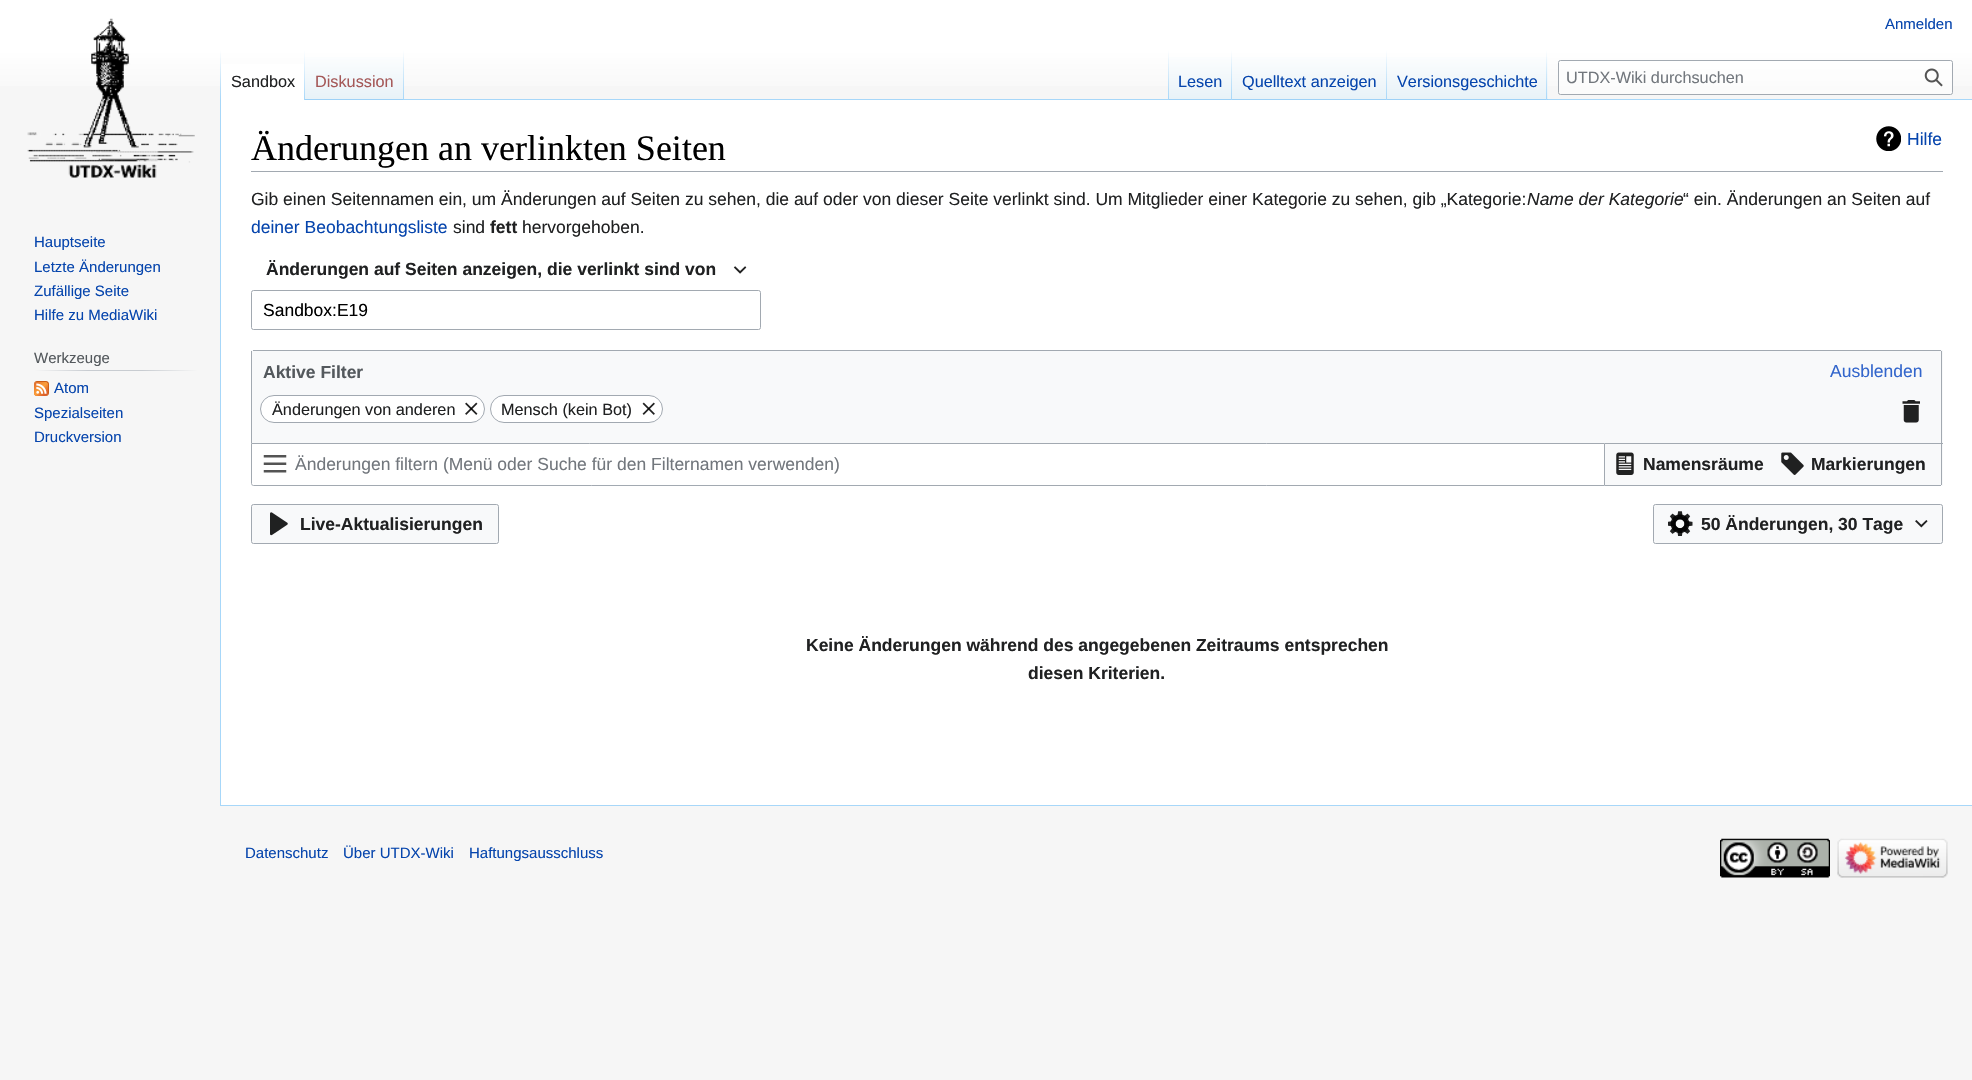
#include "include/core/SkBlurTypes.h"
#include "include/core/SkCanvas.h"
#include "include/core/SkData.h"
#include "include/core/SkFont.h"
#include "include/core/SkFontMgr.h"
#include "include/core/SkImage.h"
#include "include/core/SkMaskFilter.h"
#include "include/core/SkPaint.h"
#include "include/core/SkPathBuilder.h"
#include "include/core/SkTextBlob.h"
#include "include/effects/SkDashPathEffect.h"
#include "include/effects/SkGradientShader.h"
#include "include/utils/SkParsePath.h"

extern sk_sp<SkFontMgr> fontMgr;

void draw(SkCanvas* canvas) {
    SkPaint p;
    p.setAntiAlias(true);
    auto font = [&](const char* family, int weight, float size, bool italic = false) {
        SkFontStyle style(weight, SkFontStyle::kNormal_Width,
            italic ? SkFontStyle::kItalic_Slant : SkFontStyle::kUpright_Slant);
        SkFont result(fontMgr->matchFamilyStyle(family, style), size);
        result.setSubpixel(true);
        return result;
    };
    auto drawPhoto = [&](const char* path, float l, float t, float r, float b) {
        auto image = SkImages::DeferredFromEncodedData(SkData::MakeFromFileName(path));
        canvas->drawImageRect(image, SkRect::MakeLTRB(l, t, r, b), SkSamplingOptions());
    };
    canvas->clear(0xFFF6F6F6);
    {
        const SkColor colors[] = {0xFFFFFFFF, 0xFFF6F6F6};
        const float stops[] = {0.5f, 1};
        const SkPoint ends[] = {{986, 0}, {986, 100}};
        p.setShader(SkGradientShader::MakeLinear(ends, colors, stops, 2, SkTileMode::kClamp));
        p.setAlpha(255);
    }
    canvas->drawRect(SkRect::MakeLTRB(0, 0, 1972, 86), p);
    auto font1 = font("Liberation Sans", 400, 15);
    p.setShader(nullptr);
    p.setColor(0xFF0645AD);
    canvas->drawString("Anmelden", 1885, 29, font1, p);
    p.setColor(0xFFA7D7F9);
    canvas->drawRect(SkRect::MakeLTRB(220, 805, 1972, 806), p);
    canvas->drawRect(SkRect::MakeLTRB(220, 99, 221, 806), p);
    {
        const SkColor colors[] = {0x00A7D7F9, 0xFFA7D7F9};
        const float stops[] = {0, 1};
        const SkPoint ends[] = {{221, 50}, {221, 100}};
        p.setShader(SkGradientShader::MakeLinear(ends, colors, stops, 2, SkTileMode::kClamp));
        p.setAlpha(255);
    }
    canvas->drawRect(SkRect::MakeLTRB(220, 50, 221, 100), p);
    p.setShader(nullptr);
    p.setColor(0xFFFFFFFF);
    canvas->drawRect(SkRect::MakeLTRB(221, 64, 304, 100), p);
    {
        const SkColor colors[] = {0xFFFFFFFF, 0xFFA7D7F9};
        const float stops[] = {0, 1};
        const SkPoint ends[] = {{304, 50}, {304, 100}};
        p.setShader(SkGradientShader::MakeLinear(ends, colors, stops, 2, SkTileMode::kClamp));
        p.setAlpha(255);
    }
    canvas->drawRect(SkRect::MakeLTRB(304, 50, 305, 100), p);
    auto font2 = font("Liberation Sans", 400, 16.25f);
    p.setShader(nullptr);
    p.setColor(0xFF202122);
    canvas->drawString("Sandbox", 231, 87, font2, p);
    {
        const SkColor colors[] = {0xFF77C1F6, 0xFFE8F2F8, 0xFFFFFFFF};
        const float stops[] = {0, 0.03f, 1};
        const SkPoint ends[] = {{354, 100}, {354, 50}};
        p.setShader(SkGradientShader::MakeLinear(ends, colors, stops, 3, SkTileMode::kClamp));
        p.setAlpha(255);
    }
    canvas->drawRect(SkRect::MakeLTRB(305, 57, 404, 100), p);
    {
        const SkColor colors[] = {0x00A7D7F9, 0xFFA7D7F9};
        const float stops[] = {0, 1};
        const SkPoint ends[] = {{403, 50}, {403, 100}};
        p.setShader(SkGradientShader::MakeLinear(ends, colors, stops, 2, SkTileMode::kClamp));
        p.setAlpha(255);
    }
    canvas->drawRect(SkRect::MakeLTRB(403, 50, 404, 100), p);
    p.setShader(nullptr);
    p.setColor(0xFFA55858);
    canvas->drawString("Diskussion", 315, 87, font2, p);
    p.setColor(0xFFA7D7F9);
    canvas->drawRect(SkRect::MakeLTRB(404, 99, 1972, 100), p);
    {
        const SkColor colors[] = {0x00A7D7F9, 0xFFA7D7F9};
        const float stops[] = {0, 1};
        const SkPoint ends[] = {{1168, 50}, {1168, 100}};
        p.setShader(SkGradientShader::MakeLinear(ends, colors, stops, 2, SkTileMode::kClamp));
        p.setAlpha(255);
    }
    canvas->drawRect(SkRect::MakeLTRB(1168, 50, 1169, 100), p);
    {
        const SkColor colors[] = {0xFF77C1F6, 0xFFE8F2F8, 0xFFFFFFFF};
        const float stops[] = {0, 0.03f, 1};
        const SkPoint ends[] = {{1201, 100}, {1201, 50}};
        p.setShader(SkGradientShader::MakeLinear(ends, colors, stops, 3, SkTileMode::kClamp));
        p.setAlpha(255);
    }
    canvas->drawRect(SkRect::MakeLTRB(1169, 57, 1233, 100), p);
    {
        const SkColor colors[] = {0x00A7D7F9, 0xFFA7D7F9};
        const float stops[] = {0, 1};
        const SkPoint ends[] = {{1232, 50}, {1232, 100}};
        p.setShader(SkGradientShader::MakeLinear(ends, colors, stops, 2, SkTileMode::kClamp));
        p.setAlpha(255);
    }
    canvas->drawRect(SkRect::MakeLTRB(1231, 50, 1232, 100), p);
    p.setShader(nullptr);
    p.setColor(0xFF0645AD);
    canvas->drawString("Lesen", 1178, 87, font2, p);
    {
        const SkColor colors[] = {0xFF77C1F6, 0xFFE8F2F8, 0xFFFFFFFF};
        const float stops[] = {0, 0.03f, 1};
        const SkPoint ends[] = {{1310, 100}, {1310, 50}};
        p.setShader(SkGradientShader::MakeLinear(ends, colors, stops, 3, SkTileMode::kClamp));
        p.setAlpha(255);
    }
    canvas->drawRect(SkRect::MakeLTRB(1233, 57, 1388, 100), p);
    {
        const SkColor colors[] = {0x00A7D7F9, 0xFFA7D7F9};
        const float stops[] = {0, 1};
        const SkPoint ends[] = {{1387, 50}, {1387, 100}};
        p.setShader(SkGradientShader::MakeLinear(ends, colors, stops, 2, SkTileMode::kClamp));
        p.setAlpha(255);
    }
    canvas->drawRect(SkRect::MakeLTRB(1386, 50, 1387, 100), p);
    p.setShader(nullptr);
    p.setColor(0xFF0645AD);
    canvas->drawString("Quelltext anzeigen", 1242, 87, font2, p);
    {
        const SkColor colors[] = {0xFF77C1F6, 0xFFE8F2F8, 0xFFFFFFFF};
        const float stops[] = {0, 0.03f, 1};
        const SkPoint ends[] = {{1468, 100}, {1468, 50}};
        p.setShader(SkGradientShader::MakeLinear(ends, colors, stops, 3, SkTileMode::kClamp));
        p.setAlpha(255);
    }
    canvas->drawRect(SkRect::MakeLTRB(1388, 57, 1548, 100), p);
    {
        const SkColor colors[] = {0x00A7D7F9, 0xFFA7D7F9};
        const float stops[] = {0, 1};
        const SkPoint ends[] = {{1547, 50}, {1547, 100}};
        p.setShader(SkGradientShader::MakeLinear(ends, colors, stops, 2, SkTileMode::kClamp));
        p.setAlpha(255);
    }
    canvas->drawRect(SkRect::MakeLTRB(1546, 50, 1547, 100), p);
    p.setShader(nullptr);
    p.setColor(0xFF0645AD);
    canvas->drawString("Versionsgeschichte", 1397, 87, font2, p);
    p.setColor(0x80FFFFFF);
    canvas->drawRoundRect(SkRect::MakeLTRB(1558.5f, 60.5f, 1952.5f, 94.5f), 2, 2, p);
    p.setStyle(SkPaint::kStroke_Style);
    p.setStrokeWidth(1);
    p.setColor(0xFFA2A9B1);
    canvas->drawRoundRect(SkRect::MakeLTRB(1558.5f, 60.5f, 1952.5f, 94.5f), 2, 2, p);
    p.setStyle(SkPaint::kFill_Style);
    p.setColor(0xFF72777D);
    canvas->drawString("UTDX-Wiki durchsuchen", 1566, 83, font2, p);
    drawPhoto("media/1.png", 1924, 68, 1943, 87);
    drawPhoto("media/2.png", 27, 18, 195, 178);
    p.setColor(0xFF0645AD);
    {
        const struct { const char* s; float x, y; } items[] = {
            {"Hauptseite", 34, 247},
            {"Letzte Änderungen", 34, 272},
            {"Zufällige Seite", 34, 296},
            {"Hilfe zu MediaWiki", 34, 320},
        };
        for (auto [s, x, y] : items) {
            canvas->drawString(s, x, y, font1, p);
        }
    }
    {
        const SkColor colors[] = {0xFFF6F6F6, 0xFFC8CCD1, 0xFFC8CCD1, 0xFFF6F6F6};
        const float stops[] = {0, 0.33f, 0.66f, 1};
        const SkPoint ends[] = {{34, 371}, {198, 371}};
        p.setShader(SkGradientShader::MakeLinear(ends, colors, stops, 4, SkTileMode::kClamp));
        p.setAlpha(255);
    }
    canvas->drawRect(SkRect::MakeLTRB(34, 370, 198, 371), p);
    p.setShader(nullptr);
    p.setColor(0xFF54595D);
    canvas->drawString("Werkzeuge", 34, 363, font1, p);
    drawPhoto("media/3.png", 34, 381, 49, 396);
    p.setColor(0xFF0645AD);
    {
        const struct { const char* s; float x, y; } items[] = {
            {"Atom", 54, 393},
            {"Spezialseiten", 34, 418},
            {"Druckversion", 34, 442},
        };
        for (auto [s, x, y] : items) {
            canvas->drawString(s, x, y, font1, p);
        }
    }
    p.setColor(0xFFFFFFFF);
    canvas->drawRect(SkRect::MakeLTRB(221, 100, 1972, 805), p);
    p.setColor(0xFFA2A9B1);
    canvas->drawRect(SkRect::MakeLTRB(251, 171, 1943, 172), p);
    auto font3 = font("Liberation Serif", 400, 36);
    p.setColor(0xFF000000);
    canvas->drawString("Änderungen an verlinkten Seiten", 251, 160, font3, p);
    drawPhoto("media/4.png", 1876, 126, 1901, 151);
    auto font4 = font("Liberation Sans", 400, 17.5f);
    p.setColor(0xFF0645AD);
    canvas->drawString("Hilfe", 1907, 145, font4, p);
    p.setColor(0xFF202122);
    canvas->drawString("Gib einen Seitennamen ein, um Änderungen auf Seiten zu sehen, die auf oder von dieser Seite verlinkt sind. Um Mitglieder einer Kategorie zu sehen, gib „Kategorie:", 251, 205, font4, p);
    auto font5 = font("Liberation Sans", 400, 17.5f, true);
    canvas->drawString("Name der Kategorie", 1527, 205, font5, p);
    canvas->drawString("“ ein. Änderungen an Seiten auf", 1683, 205, font4, p);
    p.setColor(0xFF0645AD);
    canvas->drawString("deiner Beobachtungsliste", 251, 233, font4, p);
    p.setColor(0xFF202122);
    canvas->drawString("sind", 453, 233, font4, p);
    auto font6 = font("Liberation Sans", 700, 17.5f);
    canvas->drawString("fett", 490, 233, font6, p);
    canvas->drawString("hervorgehoben.", 522, 233, font4, p);
    canvas->drawString("Änderungen auf Seiten anzeigen, die verlinkt sind von", 266, 275, font6, p);
    drawPhoto("media/5.png", 733, 266, 747, 274);
    p.setStyle(SkPaint::kStroke_Style);
    p.setColor(0xFFA2A9B1);
    canvas->drawRoundRect(SkRect::MakeLTRB(251.5f, 290.5f, 760.5f, 329.5f), 2, 2, p);
    p.setStyle(SkPaint::kFill_Style);
    p.setColor(0xFF000000);
    canvas->drawString("Sandbox:E19", 263, 316, font4, p);
    {
        const struct { float l, t, r, b; SkColor color; } items[] = {
            {251, 350, 1943, 486, 0xFFF8F9FA},
            {253, 350, 1941, 351, 0xFFA2A9B1},
            {1941, 351, 1942, 443, 0xFFA2A9B1},
            {251, 351, 252, 443, 0xFFA2A9B1},
        };
        for (auto [l, t, r, b, color] : items) {
            p.setColor(color);
            canvas->drawRect(SkRect::MakeLTRB(l, t, r, b), p);
        }
    }
    p.setColor(0xFF54595D);
    canvas->drawString("Aktive Filter", 263, 378, font6, p);
    p.setColor(0xFF3366CC);
    canvas->drawString("Ausblenden", 1830, 377, font4, p);
    p.setColor(0xFFFFFFFF);
    canvas->drawRoundRect(SkRect::MakeLTRB(260.5f, 395.5f, 484.5f, 422.5f), 13.5f, 13.5f, p);
    p.setStyle(SkPaint::kStroke_Style);
    p.setColor(0xFFA2A9B1);
    canvas->drawRoundRect(SkRect::MakeLTRB(260.5f, 395.5f, 484.5f, 422.5f), 13.5f, 13.5f, p);
    p.setStyle(SkPaint::kFill_Style);
    p.setColor(0xFF202122);
    canvas->drawString("Änderungen von anderen", 272, 415, font2, p);
    drawPhoto("media/6.png", 465, 402, 478, 415);
    p.setColor(0xFFFFFFFF);
    canvas->drawRoundRect(SkRect::MakeLTRB(490.5f, 395.5f, 662.5f, 422.5f), 13.5f, 13.5f, p);
    p.setStyle(SkPaint::kStroke_Style);
    p.setColor(0xFFA2A9B1);
    canvas->drawRoundRect(SkRect::MakeLTRB(490.5f, 395.5f, 662.5f, 422.5f), 13.5f, 13.5f, p);
    p.setStyle(SkPaint::kFill_Style);
    p.setColor(0xFF202122);
    canvas->drawString("Mensch (kein Bot)", 501, 415, font2, p);
    drawPhoto("media/7.png", 642, 402, 655, 415);
    drawPhoto("media/8.png", 1902, 400, 1920, 423);
    p.setColor(0xFFFFFFFF);
    canvas->drawPath(SkPathBuilder().moveTo(251.5f, 443.5f).lineTo(1604.5f, 443.5f).lineTo(1604.5f, 485.5f).lineTo(253.5f, 485.5f).cubicTo(252.5f, 485.5f, 251.5f, 484.5f, 251.5f, 483.5f).close().detach(), p);
    p.setStyle(SkPaint::kStroke_Style);
    p.setColor(0xFFA2A9B1);
    canvas->drawPath(SkPathBuilder().moveTo(251.5f, 443.5f).lineTo(1604.5f, 443.5f).lineTo(1604.5f, 485.5f).lineTo(253.5f, 485.5f).cubicTo(252.5f, 485.5f, 251.5f, 484.5f, 251.5f, 483.5f).close().detach(), p);
    drawPhoto("media/9.png", 263, 455, 287, 473);
    p.setStyle(SkPaint::kFill_Style);
    p.setColor(0xFF72777D);
    canvas->drawString("Änderungen filtern (Menü oder Suche für den Filternamen verwenden)", 295, 470, font4, p);
    {
        const struct { float l, t, r, b; SkColor color; } items[] = {
            {1605, 443, 1943, 444, 0xFFA2A9B1},
            {1941, 443, 1942, 485, 0xFFA2A9B1},
            {1605, 485, 1941, 486, 0xFFA2A9B1},
        };
        for (auto [l, t, r, b, color] : items) {
            p.setColor(color);
            canvas->drawRect(SkRect::MakeLTRB(l, t, r, b), p);
        }
    }
    drawPhoto("media/10.png", 1616, 452, 1634, 475);
    p.setColor(0xFF202122);
    canvas->drawString("Namensräume", 1643, 470, font6, p);
    drawPhoto("media/11.png", 1781, 452, 1804, 475);
    canvas->drawString("Markierungen", 1811, 470, font6, p);
    p.setColor(0xFFF8F9FA);
    canvas->drawRoundRect(SkRect::MakeLTRB(251.5f, 504.5f, 498.5f, 543.5f), 2, 2, p);
    p.setStyle(SkPaint::kStroke_Style);
    p.setColor(0xFFA2A9B1);
    canvas->drawRoundRect(SkRect::MakeLTRB(251.5f, 504.5f, 498.5f, 543.5f), 2, 2, p);
    drawPhoto("media/12.png", 270, 512, 288, 536);
    p.setStyle(SkPaint::kFill_Style);
    p.setColor(0xFF202122);
    canvas->drawString("Live-Aktualisierungen", 300, 530, font6, p);
    p.setColor(0xFFF8F9FA);
    canvas->drawRoundRect(SkRect::MakeLTRB(1653.5f, 504.5f, 1942.5f, 543.5f), 2, 2, p);
    p.setStyle(SkPaint::kStroke_Style);
    p.setColor(0xFFA2A9B1);
    canvas->drawRoundRect(SkRect::MakeLTRB(1653.5f, 504.5f, 1942.5f, 543.5f), 2, 2, p);
    drawPhoto("media/13.png", 1668, 511, 1693, 536);
    p.setStyle(SkPaint::kFill_Style);
    p.setColor(0xFF202122);
    canvas->drawString("50 Änderungen, 30 Tage", 1701, 530, font6, p);
    drawPhoto("media/14.png", 1915, 520, 1928, 528);
    canvas->drawString("Keine Änderungen während des angegebenen Zeitraums entsprechen", 806, 651, font6, p);
    canvas->drawString("diesen Kriterien.", 1028, 679, font6, p);
    p.setColor(0xFF0645AD);
    {
        const struct { const char* s; float x, y; } items[] = {
            {"Datenschutz", 245, 858},
            {"Über UTDX-Wiki", 343, 858},
            {"Haftungsausschluss", 469, 858},
        };
        for (auto [s, x, y] : items) {
            canvas->drawString(s, x, y, font1, p);
        }
    }
    drawPhoto("media/15.png", 1720, 838, 1830, 878);
    drawPhoto("media/16.png", 1837, 838, 1948, 878);
}
